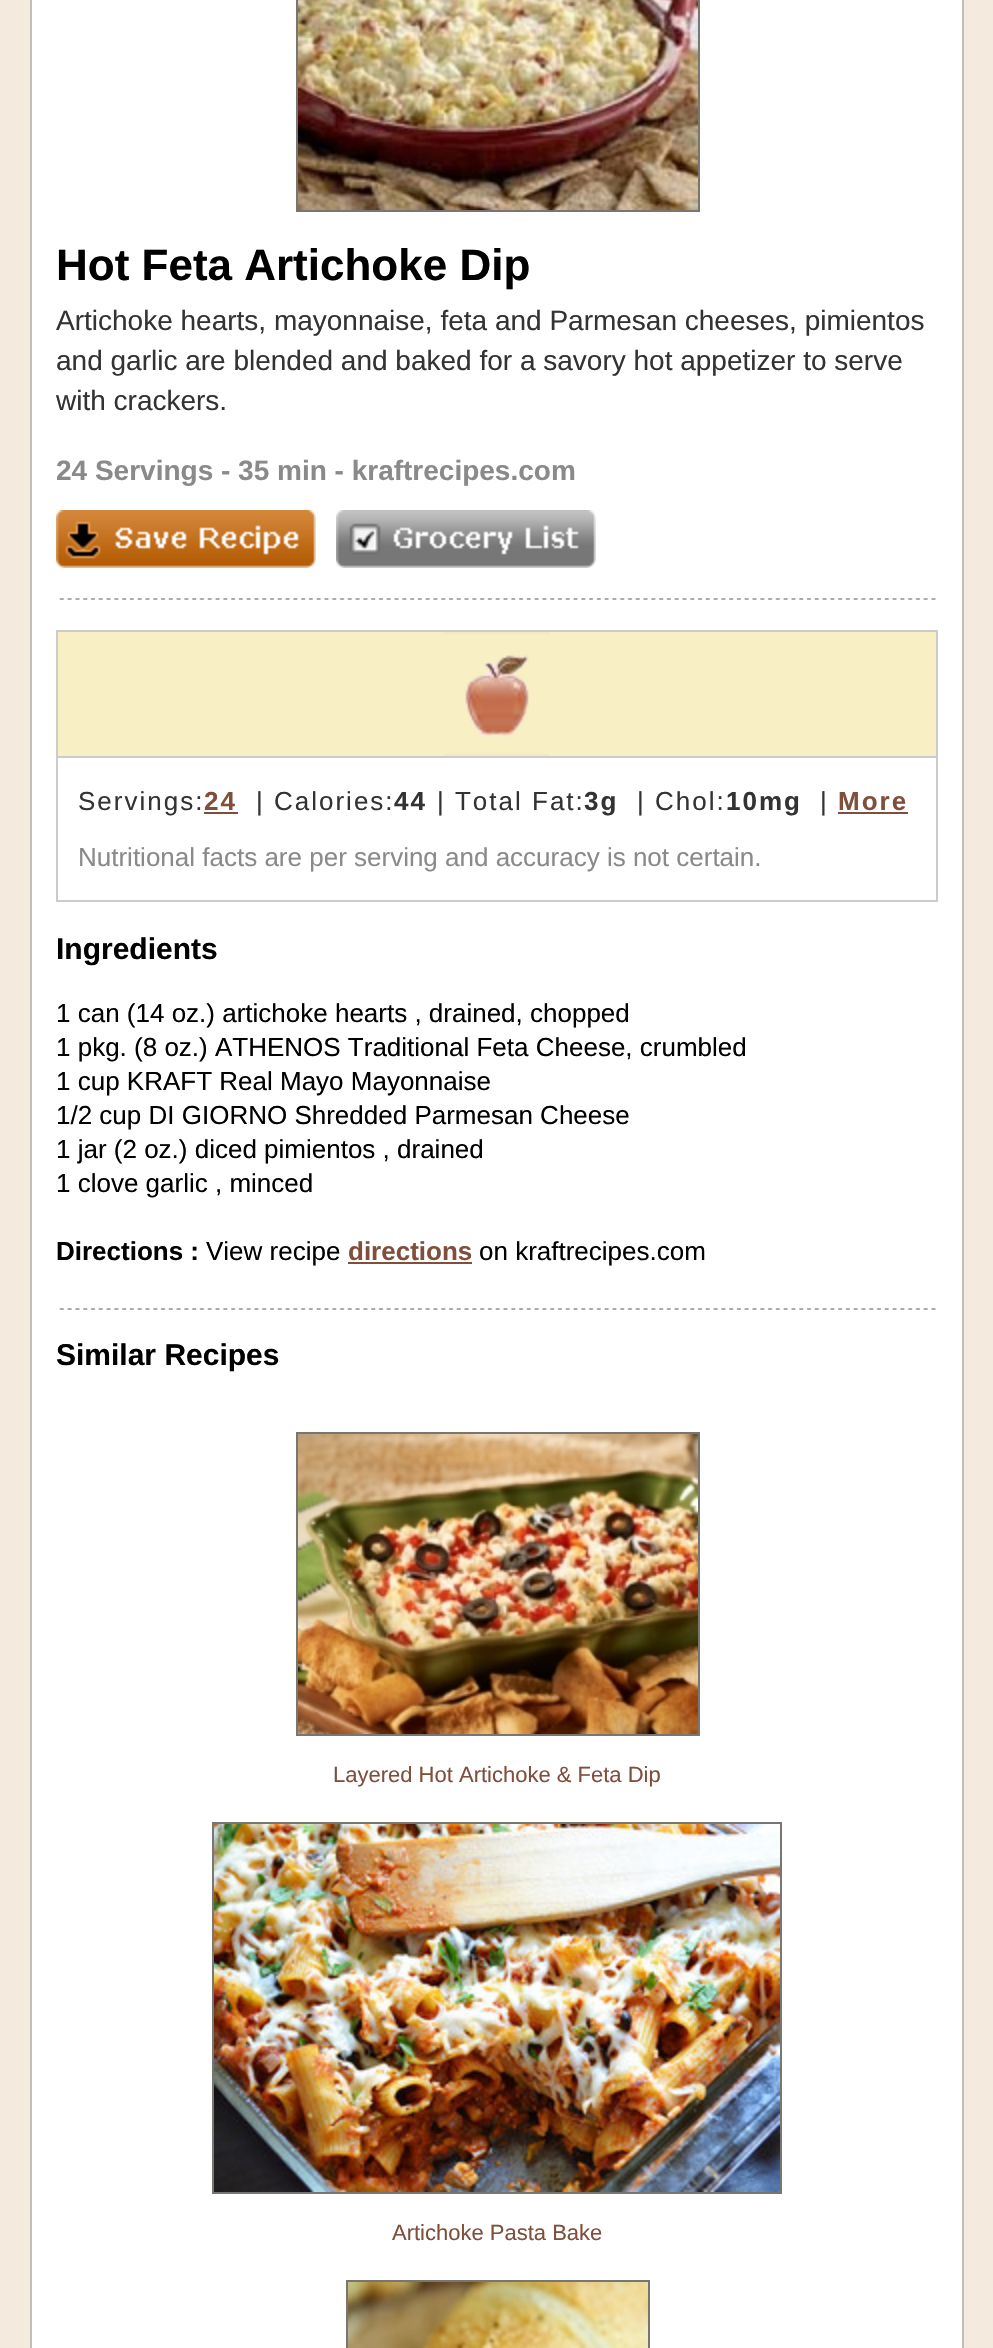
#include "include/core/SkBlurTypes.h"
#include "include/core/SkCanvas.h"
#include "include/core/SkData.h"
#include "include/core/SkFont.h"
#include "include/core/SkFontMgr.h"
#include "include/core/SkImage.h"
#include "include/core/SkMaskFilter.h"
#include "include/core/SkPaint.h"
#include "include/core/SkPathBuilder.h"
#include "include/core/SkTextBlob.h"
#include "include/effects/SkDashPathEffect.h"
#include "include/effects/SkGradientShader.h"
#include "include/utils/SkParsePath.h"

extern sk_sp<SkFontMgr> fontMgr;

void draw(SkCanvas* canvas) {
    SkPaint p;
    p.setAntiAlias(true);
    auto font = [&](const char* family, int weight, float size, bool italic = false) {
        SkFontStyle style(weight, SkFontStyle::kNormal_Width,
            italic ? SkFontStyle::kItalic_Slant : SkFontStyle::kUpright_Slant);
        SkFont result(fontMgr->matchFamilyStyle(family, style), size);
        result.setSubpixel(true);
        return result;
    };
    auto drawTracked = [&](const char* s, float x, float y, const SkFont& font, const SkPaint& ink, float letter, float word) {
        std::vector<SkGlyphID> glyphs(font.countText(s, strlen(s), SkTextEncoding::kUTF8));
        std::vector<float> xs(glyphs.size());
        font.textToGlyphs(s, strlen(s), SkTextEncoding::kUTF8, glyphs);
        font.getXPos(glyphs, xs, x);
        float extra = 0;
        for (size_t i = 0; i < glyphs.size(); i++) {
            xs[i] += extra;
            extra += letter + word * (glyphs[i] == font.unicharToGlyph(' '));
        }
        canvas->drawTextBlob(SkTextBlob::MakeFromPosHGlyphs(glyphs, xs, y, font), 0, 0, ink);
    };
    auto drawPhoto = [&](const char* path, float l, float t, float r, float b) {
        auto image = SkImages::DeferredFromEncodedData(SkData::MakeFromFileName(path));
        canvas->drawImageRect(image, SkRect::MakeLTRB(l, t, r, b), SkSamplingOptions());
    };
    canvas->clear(0xFFF4EADE);
    p.setColor(0xFFFFFFFF);
    canvas->drawRect(SkRect::MakeLTRB(31, -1, 963, 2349), p);
    p.setStyle(SkPaint::kStroke_Style);
    p.setStrokeWidth(2);
    p.setColor(0xFFC2BEB7);
    canvas->drawRect(SkRect::MakeLTRB(31, -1, 963, 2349), p);
    p.setColor(0xFF797671);
    canvas->drawRect(SkRect::MakeLTRB(297, -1, 699, 211), p);
    drawPhoto("media/1.png", 298, 0, 698, 210);
    auto font1 = font("Liberation Sans", 700, 44);
    p.setStyle(SkPaint::kFill_Style);
    p.setColor(0xFF000000);
    canvas->drawString("Hot Feta Artichoke Dip", 56, 280, font1, p);
    auto font2 = font("Liberation Sans", 400, 28);
    p.setColor(0xFF333333);
    {
        const struct { const char* s; float x, y; } items[] = {
            {"Artichoke hearts, mayonnaise, feta and Parmesan cheeses, pimientos", 56, 330},
            {"and garlic are blended and baked for a savory hot appetizer to serve", 56, 370},
            {"with crackers.", 56, 410},
        };
        for (auto [s, x, y] : items) {
            canvas->drawString(s, x, y, font2, p);
        }
    }
    auto font3 = font("Liberation Sans", 700, 28);
    p.setColor(0xFF8A8A8A);
    canvas->drawString("24 Servings - 35 min - kraftrecipes.com", 56, 480, font3, p);
    drawPhoto("media/2.png", 56, 510, 316, 568);
    drawPhoto("media/3.png", 336, 510, 596, 568);
    drawPhoto("media/4.png", 59, 598, 936, 600);
    p.setStyle(SkPaint::kStroke_Style);
    p.setColor(0xFFCCCCCC);
    canvas->drawRect(SkRect::MakeLTRB(57, 631, 937, 901), p);
    p.setStyle(SkPaint::kFill_Style);
    p.setColor(0xFFF8EFC4);
    canvas->drawRect(SkRect::MakeLTRB(58, 632, 936, 756), p);
    p.setColor(0xFFCCCCCC);
    canvas->drawRect(SkRect::MakeLTRB(58, 756, 936, 758), p);
    drawPhoto("media/5.png", 444, 632, 550, 756);
    auto font4 = font("Liberation Sans", 400, 26);
    p.setColor(0xFF333333);
    drawTracked("Servings:", 78, 810, font4, p, 2, 0);
    auto font5 = font("Liberation Sans", 700, 26);
    p.setColor(0xFF804F3C);
    drawTracked("24", 204, 810, font5, p, 2, 0);
    canvas->drawRect(SkRect::MakeLTRB(204, 812, 238, 814), p);
    p.setColor(0xFF333333);
    drawTracked("| Calories:", 256, 810, font4, p, 2, 0);
    drawTracked("44", 394, 810, font5, p, 2, 0);
    drawTracked("| Total Fat:", 437, 810, font4, p, 2, 0);
    drawTracked("3g", 584, 810, font5, p, 2, 0);
    drawTracked("| Chol:", 637, 810, font4, p, 2, 0);
    drawTracked("10mg", 726, 810, font5, p, 2, 0);
    drawTracked("|", 820, 810, font4, p, 2, 0);
    p.setColor(0xFF804F3C);
    drawTracked("More", 838, 810, font5, p, 2, 0);
    canvas->drawRect(SkRect::MakeLTRB(838, 812, 908, 814), p);
    p.setColor(0xFF8A8A8A);
    canvas->drawString("Nutritional facts are per serving and accuracy is not certain.", 78, 866, font4, p);
    auto font6 = font("Liberation Sans", 700, 30);
    p.setColor(0xFF000000);
    canvas->drawString("Ingredients", 56, 959, font6, p);
    {
        const struct { const char* s; float x, y; } items[] = {
            {"1 can (14 oz.) artichoke hearts , drained, chopped", 56, 1022},
            {"1 pkg. (8 oz.) ATHENOS Traditional Feta Cheese, crumbled", 56, 1056},
            {"1 cup KRAFT Real Mayo Mayonnaise", 56, 1090},
            {"1/2 cup DI GIORNO Shredded Parmesan Cheese", 56, 1124},
            {"1 jar (2 oz.) diced pimientos , drained", 56, 1158},
            {"1 clove garlic , minced", 56, 1192},
        };
        for (auto [s, x, y] : items) {
            canvas->drawString(s, x, y, font4, p);
        }
    }
    canvas->drawString("Directions :", 56, 1260, font5, p);
    canvas->drawString("View recipe", 206, 1260, font4, p);
    p.setColor(0xFF804F3C);
    canvas->drawString("directions", 348, 1260, font5, p);
    canvas->drawRect(SkRect::MakeLTRB(348, 1262, 472, 1264), p);
    p.setColor(0xFF000000);
    canvas->drawString("on kraftrecipes.com", 479, 1260, font4, p);
    drawPhoto("media/4.png", 59, 1308, 936, 1310);
    canvas->drawString("Similar Recipes", 56, 1365, font6, p);
    p.setStyle(SkPaint::kStroke_Style);
    p.setColor(0xFF797671);
    canvas->drawRect(SkRect::MakeLTRB(297, 1433, 699, 1735), p);
    drawPhoto("media/6.png", 298, 1434, 698, 1734);
    auto font7 = font("Liberation Sans", 400, 22);
    p.setStyle(SkPaint::kFill_Style);
    p.setColor(0xFF804F3C);
    canvas->drawString("Layered Hot Artichoke & Feta Dip", 333, 1782, font7, p);
    p.setStyle(SkPaint::kStroke_Style);
    p.setColor(0xFF797671);
    canvas->drawRect(SkRect::MakeLTRB(213, 1823, 781, 2193), p);
    drawPhoto("media/7.png", 214, 1824, 780, 2192);
    p.setStyle(SkPaint::kFill_Style);
    p.setColor(0xFF804F3C);
    canvas->drawString("Artichoke Pasta Bake", 392, 2240, font7, p);
    p.setStyle(SkPaint::kStroke_Style);
    p.setColor(0xFF797671);
    canvas->drawRect(SkRect::MakeLTRB(347, 2281, 649, 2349), p);
    drawPhoto("media/8.png", 348, 2282, 648, 2348);
}
